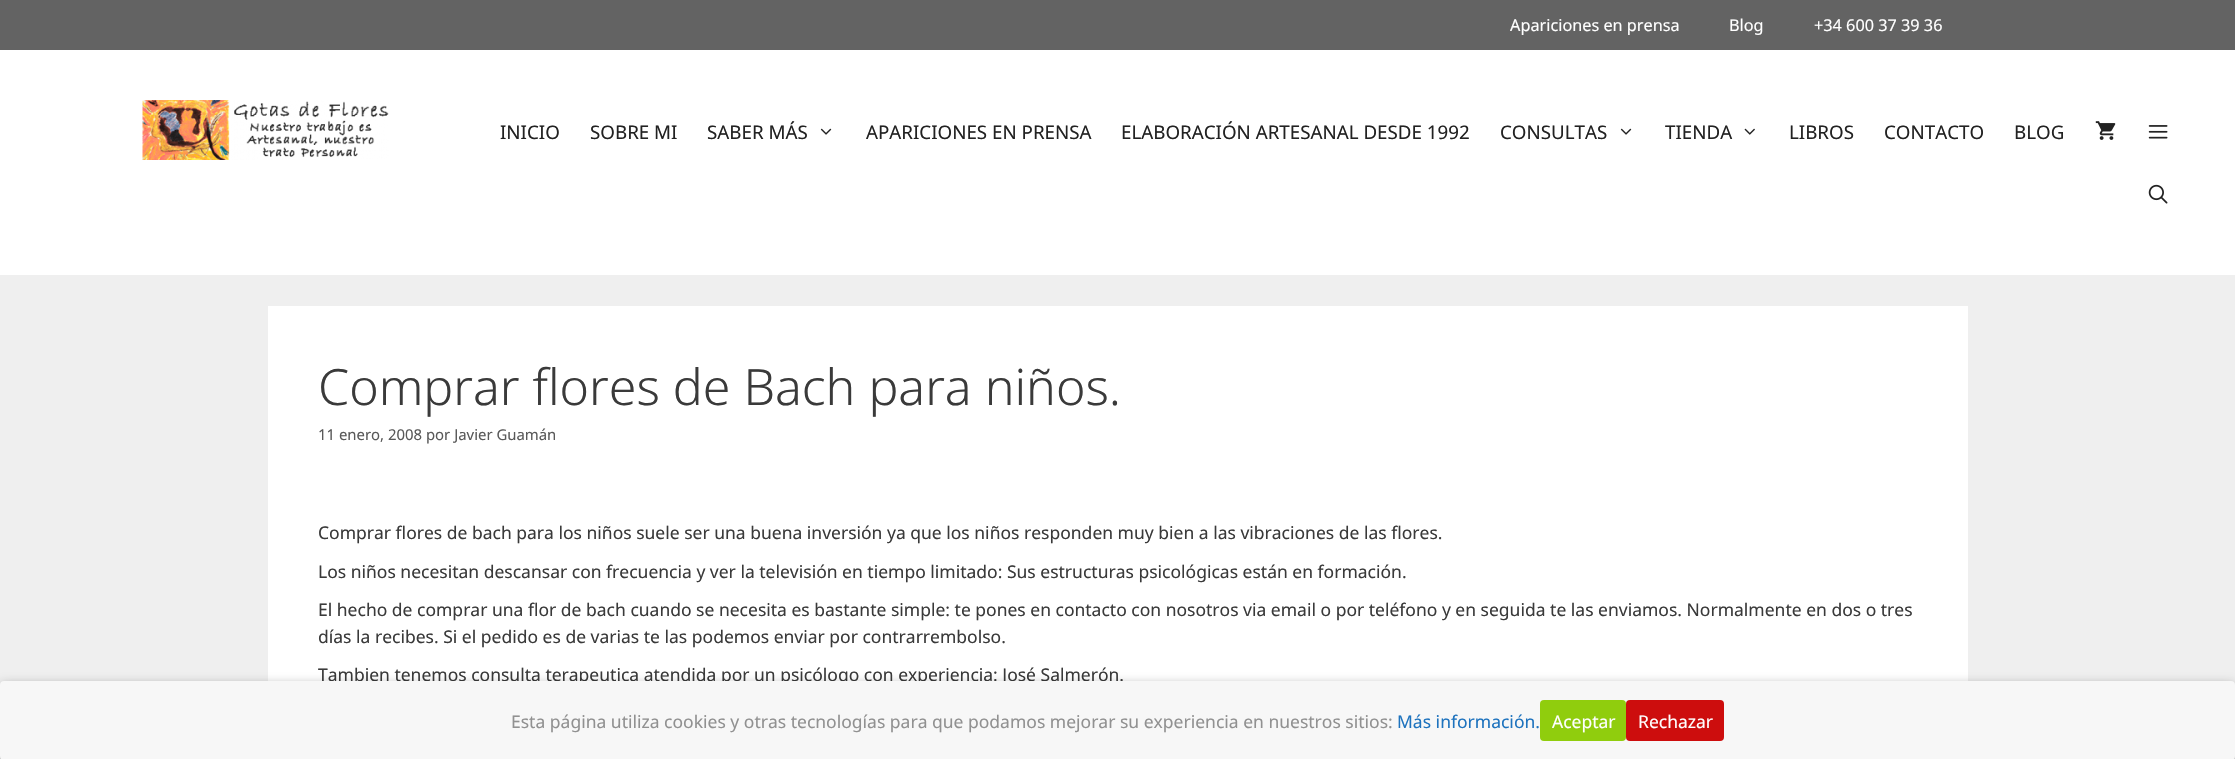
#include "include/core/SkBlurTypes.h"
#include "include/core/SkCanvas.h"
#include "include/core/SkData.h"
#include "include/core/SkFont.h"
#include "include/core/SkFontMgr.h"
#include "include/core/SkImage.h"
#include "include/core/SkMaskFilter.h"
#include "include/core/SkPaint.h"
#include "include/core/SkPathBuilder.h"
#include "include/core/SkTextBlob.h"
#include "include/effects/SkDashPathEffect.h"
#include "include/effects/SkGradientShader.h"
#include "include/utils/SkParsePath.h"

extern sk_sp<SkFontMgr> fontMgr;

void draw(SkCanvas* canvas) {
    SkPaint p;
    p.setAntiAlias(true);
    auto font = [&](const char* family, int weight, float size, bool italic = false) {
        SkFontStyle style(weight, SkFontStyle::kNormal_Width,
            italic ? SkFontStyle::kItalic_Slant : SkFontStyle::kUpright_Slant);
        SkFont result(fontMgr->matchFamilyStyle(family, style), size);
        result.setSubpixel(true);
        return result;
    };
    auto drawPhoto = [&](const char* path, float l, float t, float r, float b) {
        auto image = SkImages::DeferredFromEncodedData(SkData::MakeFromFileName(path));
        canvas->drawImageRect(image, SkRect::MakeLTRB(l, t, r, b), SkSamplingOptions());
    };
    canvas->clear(0xFFEFEFEF);
    p.setColor(0xFF636363);
    canvas->drawRect(SkRect::MakeLTRB(0, 0, 2235, 50), p);
    auto font1 = font("Noto Sans", 400, 16.25f);
    p.setColor(0xFFFFFFFF);
    {
        const struct { const char* s; float x, y; } items[] = {
            {"Apariciones en prensa", 1510, 31},
            {"Blog", 1729, 31},
            {"+34 600 37 39 36", 1814, 31},
        };
        for (auto [s, x, y] : items) {
            canvas->drawString(s, x, y, font1, p);
        }
    }
    canvas->drawRect(SkRect::MakeLTRB(0, 50, 2235, 275), p);
    drawPhoto("media/1.png", 142, 100, 389, 160);
    auto font2 = font("Noto Sans", 400, 18.75f);
    p.setColor(0xFF222222);
    {
        const struct { const char* s; float x, y; } items[] = {
            {"INICIO", 500, 139},
            {"SOBRE MI", 590, 139},
            {"SABER MÁS", 707, 139},
        };
        for (auto [s, x, y] : items) {
            canvas->drawString(s, x, y, font2, p);
        }
    }
    drawPhoto("media/2.png", 820, 128, 832, 135);
    {
        const struct { const char* s; float x, y; } items[] = {
            {"APARICIONES EN PRENSA", 866, 139},
            {"ELABORACIÓN ARTESANAL DESDE 1992", 1121, 139},
            {"CONSULTAS", 1500, 139},
        };
        for (auto [s, x, y] : items) {
            canvas->drawString(s, x, y, font2, p);
        }
    }
    drawPhoto("media/2.png", 1620, 128, 1632, 135);
    canvas->drawString("TIENDA", 1665, 139, font2, p);
    drawPhoto("media/3.png", 1744, 128, 1755, 135);
    {
        const struct { const char* s; float x, y; } items[] = {
            {"LIBROS", 1789, 139},
            {"CONTACTO", 1884, 139},
            {"BLOG", 2014, 139},
        };
        for (auto [s, x, y] : items) {
            canvas->drawString(s, x, y, font2, p);
        }
    }
    drawPhoto("media/4.png", 2095, 121, 2116, 140);
    drawPhoto("media/5.png", 2148, 125, 2168, 139);
    drawPhoto("media/6.png", 2148, 184, 2168, 204);
    p.setColor(0xFFFFFFFF);
    canvas->drawRect(SkRect::MakeLTRB(268, 306, 1968, 681), p);
    auto font3 = font("Noto Sans", 300, 50);
    p.setColor(0xFF3A3A3A);
    canvas->drawString("Comprar flores de Bach para niños.", 318, 405, font3, p);
    auto font4 = font("Noto Sans", 400, 14.9f);
    p.setColor(0xFF595959);
    canvas->drawString("11 enero, 2008 por Javier Guamán", 318, 440, font4, p);
    auto font5 = font("Noto Sans", 400, 17.5f);
    p.setColor(0xFF3A3A3A);
    {
        const struct { const char* s; float x, y; } items[] = {
            {"Comprar flores de bach para los niños suele ser una buena inversión ya que los niños responden muy bien a las vibraciones de las flores.", 318, 539},
            {"Los niños necesitan descansar con frecuencia y ver la televisión en tiempo limitado: Sus estructuras psicológicas están en formación.", 318, 578},
            {"El hecho de comprar una flor de bach cuando se necesita es bastante simple: te pones en contacto con nosotros via email o por teléfono y en seguida te las enviamos. Normalmente en dos o tres", 318, 616},
            {"días la recibes. Si el pedido es de varias te las podemos enviar por contrarrembolso.", 318, 643},
            {"Tambien tenemos consulta terapeutica atendida por un psicólogo con experiencia: José Salmerón.", 318, 681},
        };
        for (auto [s, x, y] : items) {
            canvas->drawString(s, x, y, font5, p);
        }
    }
    p.setColor(0x66000000);
    p.setMaskFilter(SkMaskFilter::MakeBlur(kNormal_SkBlurStyle, 5.5f));
    canvas->drawRoundRect(SkRect::MakeLTRB(0, 685, 2235, 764), 4, 4, p);
    p.setMaskFilter(nullptr);
    p.setColor(0xFFF7F7F7);
    canvas->drawRoundRect(SkRect::MakeLTRB(0, 681, 2235, 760), 4, 4, p);
    p.setColor(0xFF919191);
    canvas->drawString("Esta página utiliza cookies y otras tecnologías para que podamos mejorar su experiencia en nuestros sitios:", 511, 728, font5, p);
    p.setColor(0xFF1E73BE);
    canvas->drawString("Más información.", 1397, 728, font5, p);
    p.setColor(0xFF90CD0D);
    canvas->drawRoundRect(SkRect::MakeLTRB(1540, 700, 1626, 741), 4, 4, p);
    p.setColor(0xFFFFFFFF);
    canvas->drawString("Aceptar", 1552, 728, font5, p);
    p.setColor(0xFFCD0D0D);
    canvas->drawRoundRect(SkRect::MakeLTRB(1626, 700, 1724, 741), 4, 4, p);
    p.setColor(0xFFFFFFFF);
    canvas->drawString("Rechazar", 1638, 728, font5, p);
}
